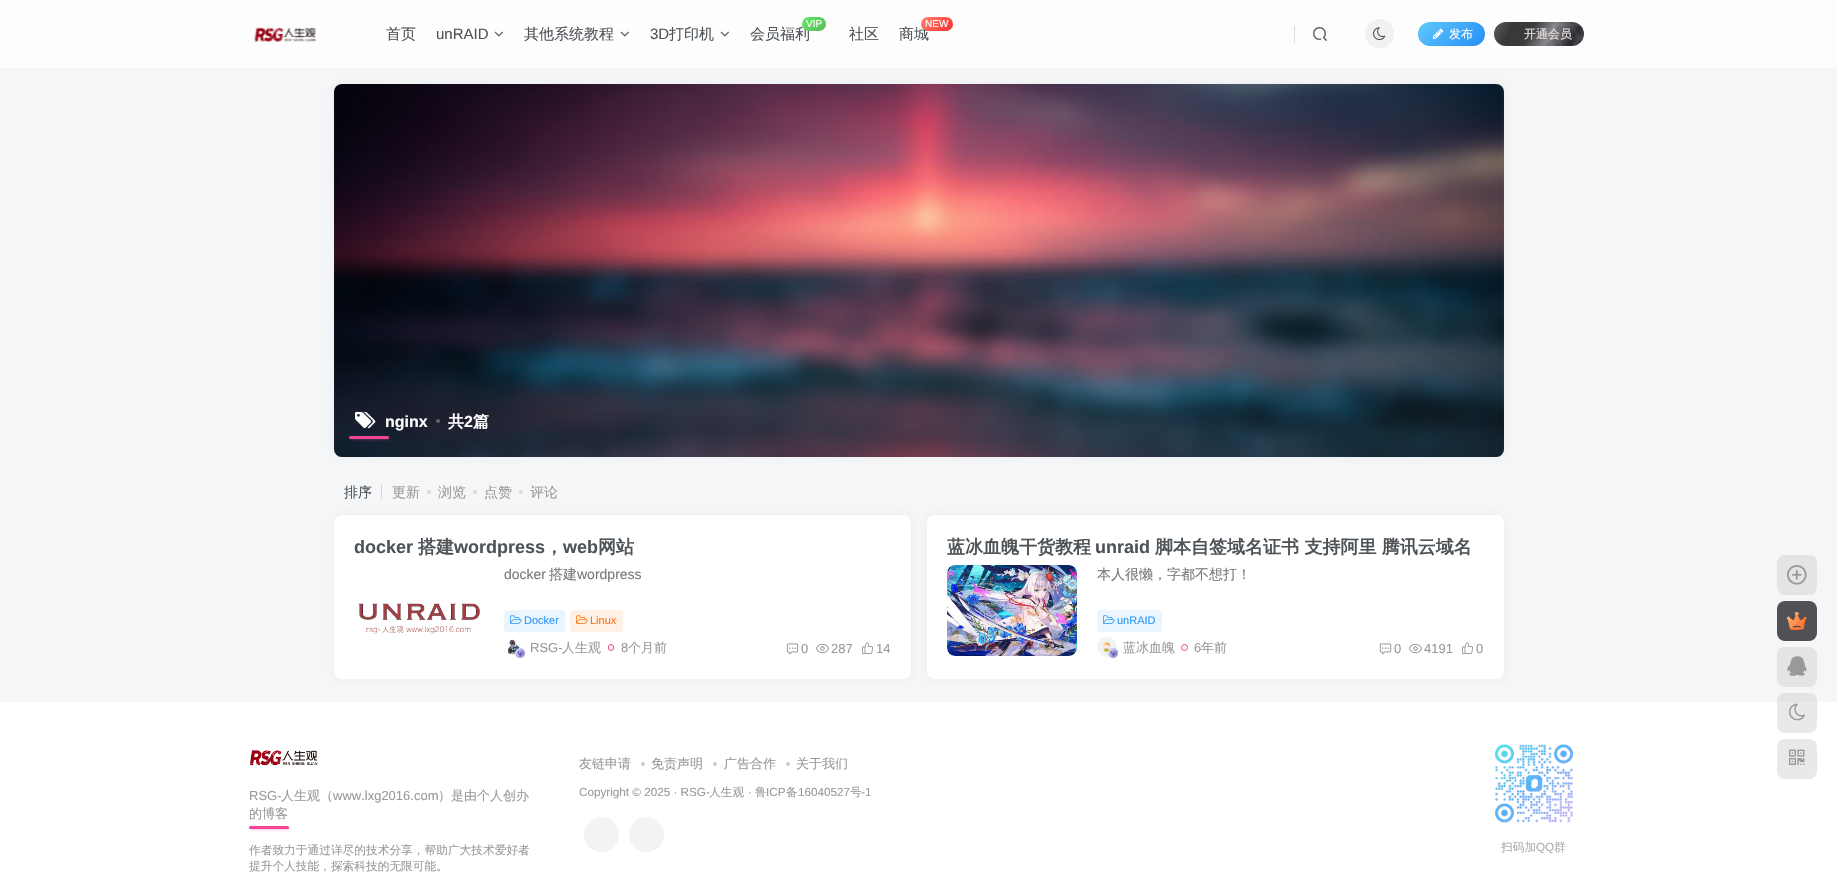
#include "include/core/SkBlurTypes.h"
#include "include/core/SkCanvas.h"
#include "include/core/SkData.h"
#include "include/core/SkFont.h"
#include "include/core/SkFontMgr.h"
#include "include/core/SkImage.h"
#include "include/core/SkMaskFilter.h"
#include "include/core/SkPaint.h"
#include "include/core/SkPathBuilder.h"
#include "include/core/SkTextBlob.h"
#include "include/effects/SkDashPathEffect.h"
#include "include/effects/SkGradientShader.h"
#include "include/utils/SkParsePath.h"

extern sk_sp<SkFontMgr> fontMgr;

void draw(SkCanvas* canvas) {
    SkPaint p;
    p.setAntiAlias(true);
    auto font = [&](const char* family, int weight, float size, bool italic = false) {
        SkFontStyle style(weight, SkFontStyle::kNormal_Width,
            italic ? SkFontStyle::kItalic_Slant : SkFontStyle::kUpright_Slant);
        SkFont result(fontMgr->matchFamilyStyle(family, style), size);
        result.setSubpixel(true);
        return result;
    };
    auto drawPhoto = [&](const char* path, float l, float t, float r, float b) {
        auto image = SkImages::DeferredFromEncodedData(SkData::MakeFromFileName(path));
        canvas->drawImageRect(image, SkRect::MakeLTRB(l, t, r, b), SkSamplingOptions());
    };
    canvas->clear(0xFFF5F6F7);
    p.setColor(0xFFFDFDFD);
    canvas->drawRect(SkRect::MakeLTRB(0, 0, 1837, 68), p);
    drawPhoto("media/1.png", 254, 27, 317, 42);
    auto font1 = font("WenQuanYi Zen Hei", 500, 15);
    p.setColor(0xFF4E5358);
    canvas->drawString("首页", 386, 39, font1, p);
    auto font2 = font("Liberation Sans", 400, 15);
    canvas->drawString("unRAID", 436, 39, font2, p);
    drawPhoto("media/2.png", 494, 31, 503, 37);
    canvas->drawString("其他系统教程", 524, 39, font1, p);
    drawPhoto("media/2.png", 620, 31, 629, 37);
    canvas->drawString("3D", 650, 39, font2, p);
    canvas->drawString("打印机", 669, 39, font1, p);
    drawPhoto("media/2.png", 720, 31, 729, 37);
    canvas->drawString("会员福利", 750, 39, font1, p);
    {
        const SkColor colors[] = {0xFF60E464, 0xFF5CB85B};
        const float stops[] = {0.1f, 1};
        const SkPoint ends[] = {{804, 14}, {824, 34}};
        p.setShader(SkGradientShader::MakeLinear(ends, colors, stops, 2, SkTileMode::kClamp));
        p.setAlpha(255);
    }
    canvas->drawRoundRect(SkRect::MakeLTRB(802, 17, 826, 31), 7, 7, p);
    auto font3 = font("Liberation Sans", 400, 10);
    p.setShader(nullptr);
    p.setColor(0xFFFFFFFF);
    canvas->drawString("VIP", 806, 27, font3, p);
    p.setColor(0xFF4E5358);
    canvas->drawString("社区", 849, 39, font1, p);
    canvas->drawString("商城", 899, 39, font1, p);
    {
        const SkColor colors[] = {0xFFFD7A64, 0xFFFB2D2D};
        const float stops[] = {0.1f, 1};
        const SkPoint ends[] = {{926, 12}, {949, 36}};
        p.setShader(SkGradientShader::MakeLinear(ends, colors, stops, 2, SkTileMode::kClamp));
        p.setAlpha(255);
    }
    canvas->drawRoundRect(SkRect::MakeLTRB(921, 17, 953, 31), 7, 7, p);
    p.setShader(nullptr);
    p.setColor(0xFFFFFFFF);
    canvas->drawString("NEW", 925, 27, font3, p);
    p.setColor(0xFFDADBDC);
    canvas->drawRect(SkRect::MakeLTRB(1294, 26, 1295, 43), p);
    drawPhoto("media/3.png", 1313, 27, 1327, 41);
    p.setColor(0xFFF1F1F1);
    canvas->drawCircle(1379.5f, 33.5f, 14.5f, p);
    drawPhoto("media/4.png", 1373, 27, 1386, 41);
    {
        const SkColor colors[] = {0xFF59C3FB, 0xFF268DF7};
        const float stops[] = {0.1f, 1};
        const SkPoint ends[] = {{1429, 11}, {1474, 57}};
        p.setShader(SkGradientShader::MakeLinear(ends, colors, stops, 2, SkTileMode::kClamp));
        p.setAlpha(255);
    }
    canvas->drawRoundRect(SkRect::MakeLTRB(1418, 22, 1485, 46), 12, 12, p);
    drawPhoto("media/5.png", 1433, 28, 1444, 39);
    auto font4 = font("WenQuanYi Zen Hei", 500, 12);
    p.setShader(nullptr);
    p.setColor(0xFFFFFFFF);
    canvas->drawString("发布", 1449, 38, font4, p);
    {
        const SkColor colors[] = {0xFF4C4D51, 0xFF2A2A31, 0xFF85858A, 0xFF393A3C, 0xFF393838, 0xFF5E5F62};
        const float stops[] = {0, 0.15f, 0.4f, 0.6f, 0.8f, 1};
        const SkPoint ends[] = {{1578, 56}, {1500, 12}};
        p.setShader(SkGradientShader::MakeLinear(ends, colors, stops, 6, SkTileMode::kClamp));
        p.setAlpha(255);
    }
    canvas->drawRoundRect(SkRect::MakeLTRB(1494, 22, 1584, 46), 12, 12, p);
    p.setShader(nullptr);
    p.setColor(0xFF4E4745);
    canvas->drawRect(SkRect::MakeLTRB(1506, 25, 1507, 26), p);
    p.setColor(0xFFECE0E0);
    canvas->drawString("开通会员", 1524, 38, font4, p);
    drawPhoto("media/6.png", 1544, 24, 1584, 46);
    p.setColor(0x14747474);
    p.setMaskFilter(SkMaskFilter::MakeBlur(kNormal_SkBlurStyle, 5));
    canvas->drawRoundRect(SkRect::MakeLTRB(334, 84, 1504, 457), 8, 8, p);
    p.setMaskFilter(nullptr);
    p.setColor(0xFFFFFFFF);
    canvas->drawRoundRect(SkRect::MakeLTRB(334, 84, 1504, 457), 8, 8, p);
    drawPhoto("media/7.png", 334, 84, 1504, 457);
    {
        const SkColor colors[] = {0x661D2931, 0x001D2931};
        const float stops[] = {0.11f, 0.3f};
        const SkPoint ends[] = {{919, 457}, {919, 84}};
        p.setShader(SkGradientShader::MakeLinear(ends, colors, stops, 2, SkTileMode::kClamp));
        p.setAlpha(255);
    }
    canvas->drawRoundRect(SkRect::MakeLTRB(334, 84, 1504, 457), 8, 8, p);
    drawPhoto("media/8.png", 355, 411, 376, 429);
    auto font5 = font("Liberation Sans", 700, 16);
    p.setShader(nullptr);
    p.setColor(0xFFFFFFFF);
    canvas->drawString("nginx", 385, 427, font5, p);
    p.setColor(0xFF62636E);
    canvas->drawCircle(438, 421, 2, p);
    auto font6 = font("WenQuanYi Zen Hei", 700, 16);
    p.setColor(0xFFFFFFFF);
    canvas->drawString("共", 448, 427, font6, p);
    canvas->drawString("2", 464, 427, font5, p);
    canvas->drawString("篇", 473, 427, font6, p);
    p.setColor(0xFFF04494);
    p.setMaskFilter(SkMaskFilter::MakeBlur(kNormal_SkBlurStyle, 1.5f));
    canvas->drawRoundRect(SkRect::MakeLTRB(351, 438, 389, 439), 0.5f, 0.5f, p);
    p.setMaskFilter(nullptr);
    canvas->drawRoundRect(SkRect::MakeLTRB(349, 436, 389, 439), 1.5f, 1.5f, p);
    auto font7 = font("WenQuanYi Zen Hei", 500, 14);
    p.setColor(0xFF4E5358);
    canvas->drawString("排序", 344, 497, font7, p);
    p.setColor(0xFFD4D5D7);
    canvas->drawRect(SkRect::MakeLTRB(381, 484, 382, 499), p);
    p.setColor(0xFF999999);
    canvas->drawString("更新", 392, 497, font7, p);
    p.setColor(0xFFD9DADB);
    canvas->drawCircle(429, 492, 2, p);
    p.setColor(0xFF999999);
    canvas->drawString("浏览", 438, 497, font7, p);
    p.setColor(0xFFD9DADB);
    canvas->drawCircle(475, 492, 2, p);
    p.setColor(0xFF999999);
    canvas->drawString("点赞", 484, 497, font7, p);
    p.setColor(0xFFD9DADB);
    canvas->drawCircle(521, 492, 2, p);
    p.setColor(0xFF999999);
    canvas->drawString("评论", 530, 497, font7, p);
    p.setColor(0x14747474);
    p.setMaskFilter(SkMaskFilter::MakeBlur(kNormal_SkBlurStyle, 5));
    canvas->drawRoundRect(SkRect::MakeLTRB(334, 515, 911, 679), 8, 8, p);
    p.setMaskFilter(nullptr);
    p.setColor(0xFFFFFFFF);
    canvas->drawRoundRect(SkRect::MakeLTRB(334, 515, 911, 679), 8, 8, p);
    auto font8 = font("Liberation Sans", 700, 18);
    p.setColor(0xFF4E5358);
    canvas->drawString("docker", 354, 553, font8, p);
    auto font9 = font("WenQuanYi Zen Hei", 700, 18);
    canvas->drawString("搭建", 418, 553, font9, p);
    canvas->drawString("wordpress", 454, 553, font8, p);
    canvas->drawString("，", 545, 553, font9, p);
    canvas->drawString("web", 563, 553, font8, p);
    canvas->drawString("网站", 598, 553, font9, p);
    drawPhoto("media/9.png", 358, 603, 480, 634);
    auto font10 = font("Liberation Sans", 400, 14);
    p.setColor(0xFF777777);
    canvas->drawString("docker", 504, 579, font10, p);
    canvas->drawString("搭建", 549, 579, font7, p);
    canvas->drawString("wordpress", 577, 579, font10, p);
    p.setColor(0xFFEAF5FE);
    canvas->drawRoundRect(SkRect::MakeLTRB(504, 610, 565, 632), 4, 4, p);
    drawPhoto("media/10.png", 510, 615, 522, 624);
    auto font11 = font("Liberation Sans", 400, 11);
    p.setColor(0xFF2997F7);
    canvas->drawString("Docker", 524, 624, font11, p);
    p.setColor(0xFFFFF1E6);
    canvas->drawRoundRect(SkRect::MakeLTRB(570, 610, 623, 632), 4, 4, p);
    drawPhoto("media/11.png", 576, 615, 588, 624);
    p.setColor(0xFFFF6F06);
    canvas->drawString("Linux", 590, 624, font11, p);
    drawPhoto("media/12.png", 507, 639, 521, 655);
    drawPhoto("media/13.png", 515, 648, 525, 658);
    auto font12 = font("Liberation Sans", 400, 13);
    p.setColor(0xFF999999);
    canvas->drawString("RSG-", 530, 652, font12, p);
    auto font13 = font("WenQuanYi Zen Hei", 500, 13);
    canvas->drawString("人生观", 562, 652, font13, p);
    p.setStyle(SkPaint::kStroke_Style);
    p.setStrokeWidth(1);
    p.setColor(0xFFF04494);
    canvas->drawRoundRect(SkRect::MakeLTRB(608.5f, 644.5f, 613.5f, 650.5f), 2.5f, 2.5f, p);
    p.setStyle(SkPaint::kFill_Style);
    p.setColor(0xFF999999);
    canvas->drawString("8", 621, 652, font12, p);
    canvas->drawString("个月前", 628, 652, font13, p);
    drawPhoto("media/14.png", 786, 643, 799, 655);
    canvas->drawString("0", 801, 653, font12, p);
    drawPhoto("media/15.png", 816, 643, 829, 654);
    canvas->drawString("287", 831, 653, font12, p);
    drawPhoto("media/16.png", 862, 642, 873, 654);
    canvas->drawString("14", 876, 653, font12, p);
    p.setColor(0x14747474);
    p.setMaskFilter(SkMaskFilter::MakeBlur(kNormal_SkBlurStyle, 5));
    canvas->drawRoundRect(SkRect::MakeLTRB(927, 515, 1504, 679), 8, 8, p);
    p.setMaskFilter(nullptr);
    p.setColor(0xFFFFFFFF);
    canvas->drawRoundRect(SkRect::MakeLTRB(927, 515, 1504, 679), 8, 8, p);
    p.setColor(0xFF4E5358);
    canvas->drawString("蓝冰血魄干货教程", 947, 553, font9, p);
    canvas->drawString("unraid", 1095, 553, font8, p);
    canvas->drawString("脚本自签域名证书 支持阿里 腾讯云域名", 1155, 553, font9, p);
    drawPhoto("media/17.png", 947, 565, 1077, 656);
    p.setColor(0xFF777777);
    canvas->drawString("本人很懒，字都不想打！", 1097, 579, font7, p);
    p.setColor(0xFFEAF5FE);
    canvas->drawRoundRect(SkRect::MakeLTRB(1097, 610, 1162, 632), 4, 4, p);
    drawPhoto("media/10.png", 1103, 615, 1115, 624);
    p.setColor(0xFF2997F7);
    canvas->drawString("unRAID", 1117, 624, font11, p);
    drawPhoto("media/18.png", 1097, 637, 1117, 657);
    drawPhoto("media/19.png", 1108, 648, 1118, 658);
    p.setColor(0xFF999999);
    canvas->drawString("蓝冰血魄", 1123, 652, font13, p);
    p.setStyle(SkPaint::kStroke_Style);
    p.setColor(0xFFF04494);
    canvas->drawCircle(1184.5f, 647.5f, 3, p);
    p.setStyle(SkPaint::kFill_Style);
    p.setColor(0xFF999999);
    canvas->drawString("6", 1194, 652, font12, p);
    canvas->drawString("年前", 1201, 652, font13, p);
    drawPhoto("media/14.png", 1379, 643, 1392, 655);
    canvas->drawString("0", 1394, 653, font12, p);
    drawPhoto("media/15.png", 1409, 643, 1422, 654);
    canvas->drawString("4191", 1424, 653, font12, p);
    drawPhoto("media/16.png", 1462, 642, 1473, 654);
    canvas->drawString("0", 1476, 653, font12, p);
    p.setColor(0xFFE3E4E4);
    canvas->drawRoundRect(SkRect::MakeLTRB(1777, 555, 1817, 595), 8, 8, p);
    drawPhoto("media/20.png", 1787, 565, 1807, 585);
    p.setColor(0xFF505055);
    canvas->drawRoundRect(SkRect::MakeLTRB(1777, 601, 1817, 641), 8, 8, p);
    drawPhoto("media/21.png", 1787, 612, 1807, 630);
    p.setColor(0xFFE3E4E4);
    canvas->drawRoundRect(SkRect::MakeLTRB(1777, 647, 1817, 687), 8, 8, p);
    drawPhoto("media/22.png", 1787, 656, 1807, 676);
    p.setColor(0xFFFFFFFF);
    canvas->drawRect(SkRect::MakeLTRB(0, 702, 1837, 885), p);
    p.setColor(0x66C8C8C8);
    canvas->drawRoundRect(SkRect::MakeLTRB(1777, 693, 1817, 733), 8, 8, p);
    drawPhoto("media/23.png", 1789, 703, 1805, 721);
    p.setColor(0xFFE9E9E9);
    canvas->drawRoundRect(SkRect::MakeLTRB(1777, 739, 1817, 779), 8, 8, p);
    drawPhoto("media/24.png", 1789, 749, 1805, 765);
    p.setColor(0xFF999999);
    canvas->drawString("友链申请", 579, 768, font13, p);
    p.setColor(0xFFCACBCD);
    canvas->drawCircle(643, 764, 2, p);
    p.setColor(0xFF999999);
    canvas->drawString("免责声明", 651, 768, font13, p);
    p.setColor(0xFFCACBCD);
    canvas->drawCircle(715, 764, 2, p);
    p.setColor(0xFF999999);
    canvas->drawString("广告合作", 724, 768, font13, p);
    p.setColor(0xFFCACBCD);
    canvas->drawCircle(788, 764, 2, p);
    p.setColor(0xFF999999);
    canvas->drawString("关于我们", 796, 768, font13, p);
    auto font14 = font("Liberation Sans", 400, 11.7f);
    canvas->drawString("Copyright © 2025 · RSG-", 579, 796, font14, p);
    auto font15 = font("WenQuanYi Zen Hei", 500, 11.7f);
    canvas->drawString("人生观", 709, 796, font15, p);
    canvas->drawString("·", 748, 796, font14, p);
    canvas->drawString("鲁", 755, 796, font15, p);
    canvas->drawString("ICP", 766, 796, font14, p);
    canvas->drawString("备", 786, 796, font15, p);
    canvas->drawString("16040527", 798, 796, font14, p);
    canvas->drawString("号", 850, 796, font15, p);
    canvas->drawString("-1", 861, 796, font14, p);
    p.setColor(0xFFF3F3F3);
    canvas->drawCircle(601.5f, 834.5f, 17.5f, p);
    canvas->drawCircle(646.5f, 834.5f, 17.5f, p);
    drawPhoto("media/25.png", 250, 750, 318, 766);
    p.setColor(0xFF999999);
    canvas->drawString("RSG-", 249, 800, font12, p);
    canvas->drawString("人生观（", 281, 800, font13, p);
    canvas->drawString("www.lxg2016.com", 333, 800, font12, p);
    canvas->drawString("）是由个人创办", 438, 800, font13, p);
    canvas->drawString("的博客", 249, 818, font13, p);
    p.setColor(0xFFF04494);
    p.setMaskFilter(SkMaskFilter::MakeBlur(kNormal_SkBlurStyle, 1.5f));
    canvas->drawRoundRect(SkRect::MakeLTRB(251, 828, 289, 829), 0.5f, 0.5f, p);
    p.setMaskFilter(nullptr);
    canvas->drawRoundRect(SkRect::MakeLTRB(249, 826, 289, 829), 1.5f, 1.5f, p);
    p.setColor(0xFF999999);
    canvas->drawString("作者致力于通过详尽的技术分享，帮助广大技术爱好者", 249, 854, font15, p);
    canvas->drawString("提升个人技能，探索科技的无限可能。", 249, 870, font15, p);
    drawPhoto("media/26.png", 1495, 744, 1573, 823);
    p.setColor(0xFFADADAD);
    canvas->drawString("扫码加", 1501, 851, font15, p);
    canvas->drawString("QQ", 1536, 851, font14, p);
    canvas->drawString("群", 1554, 851, font15, p);
}
